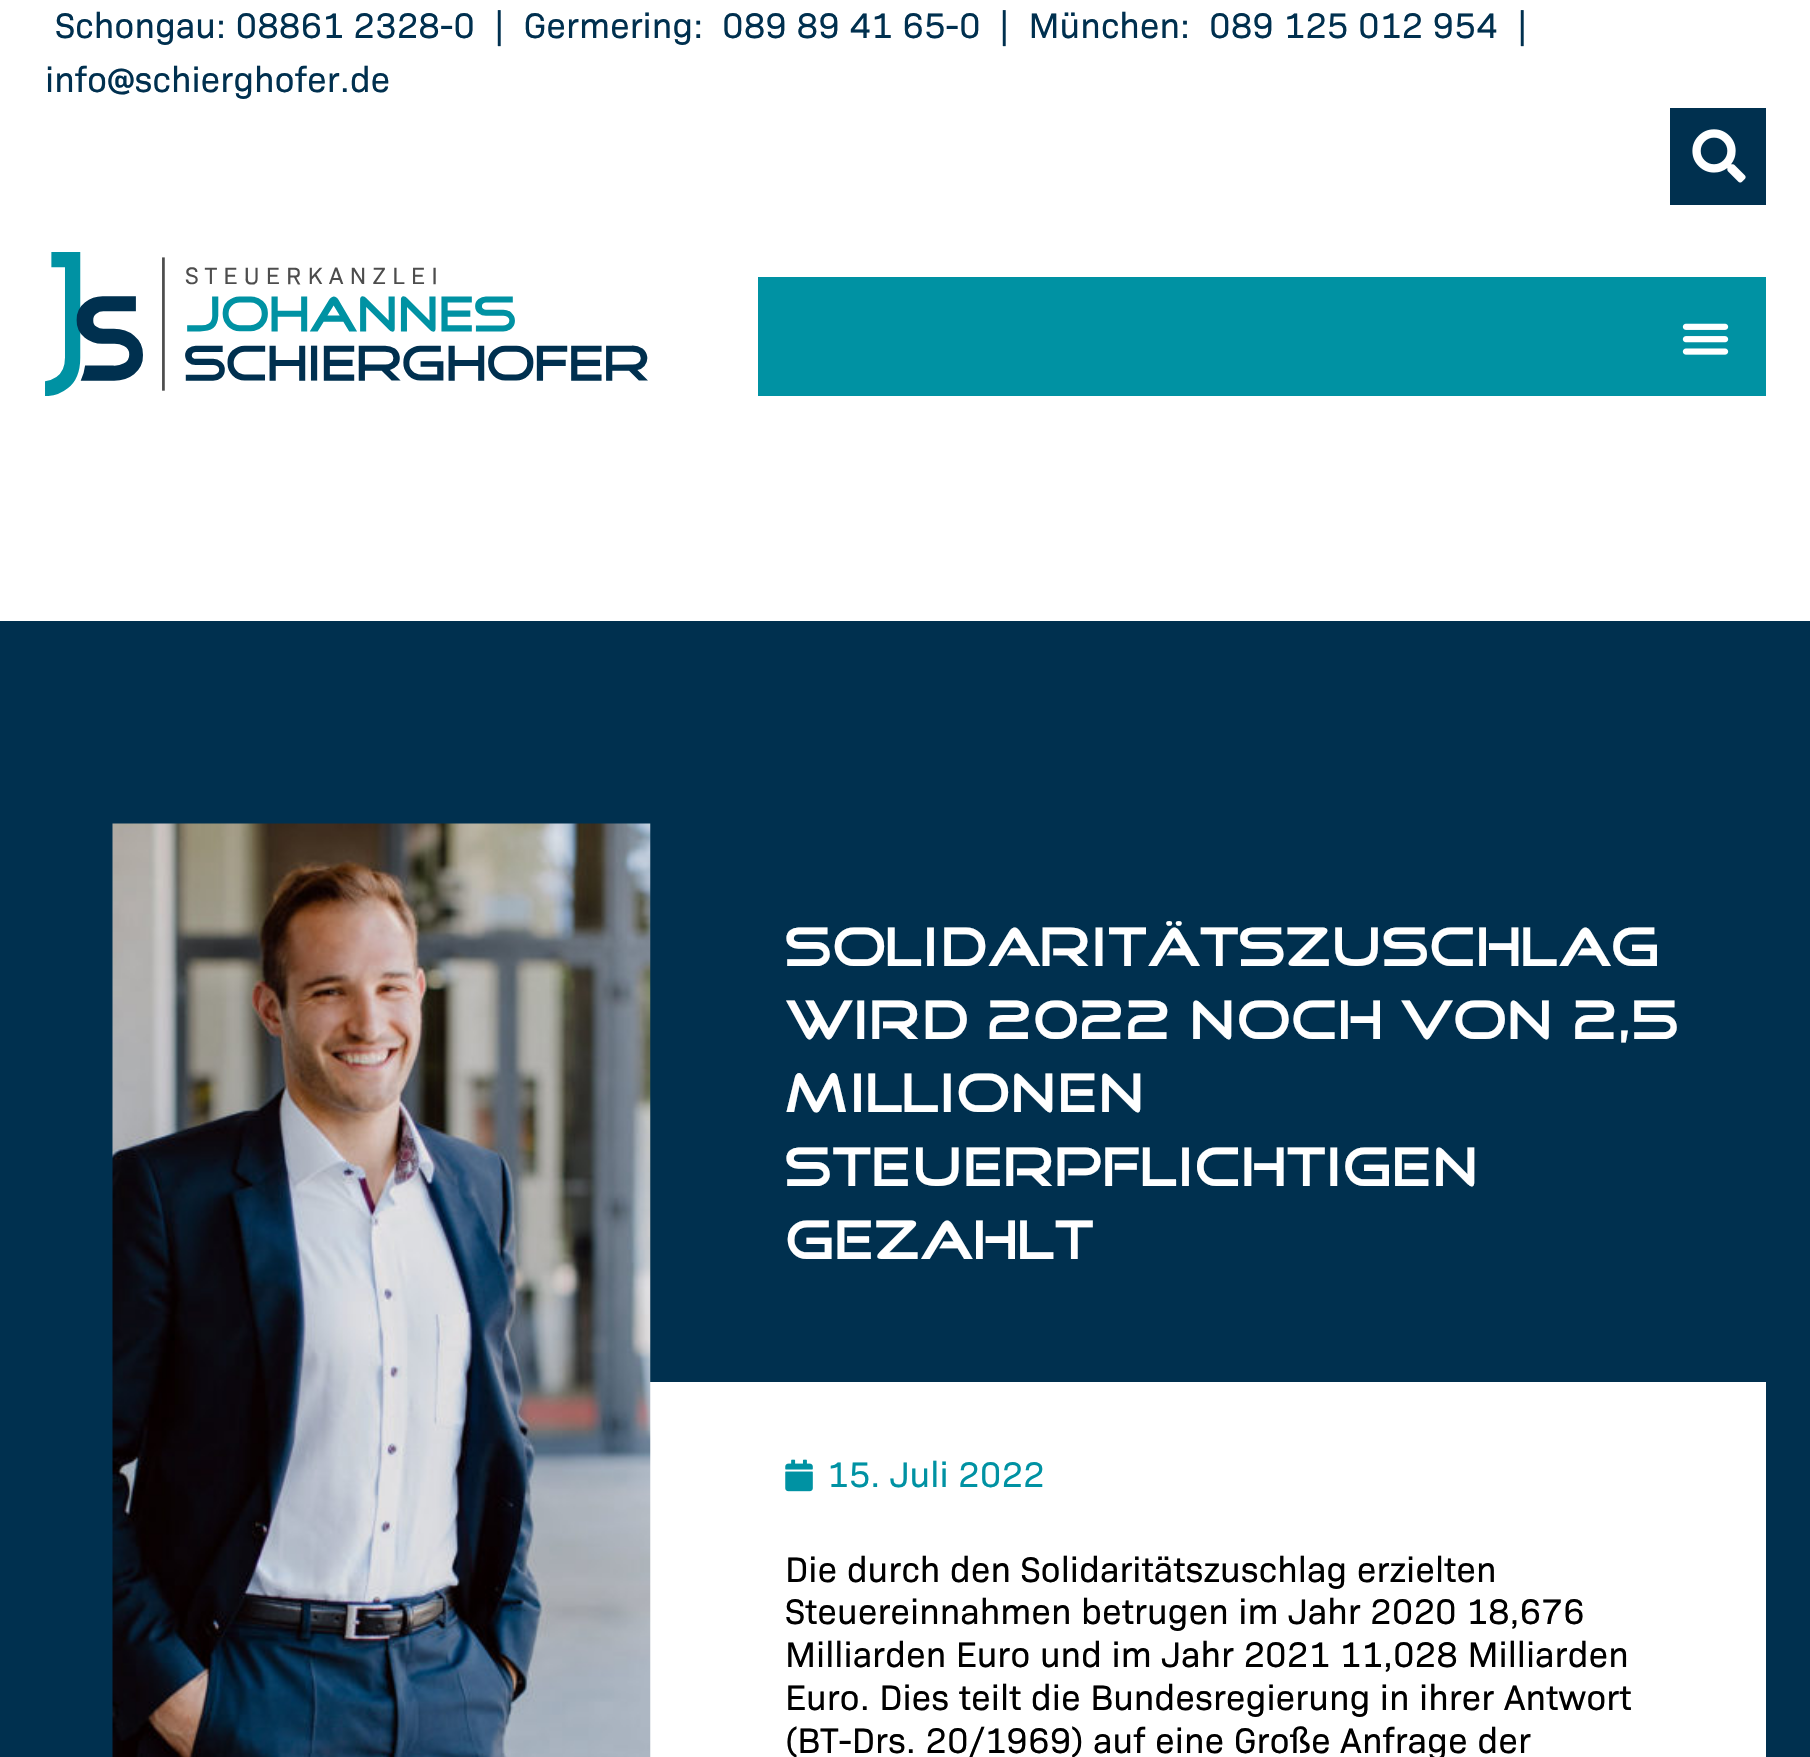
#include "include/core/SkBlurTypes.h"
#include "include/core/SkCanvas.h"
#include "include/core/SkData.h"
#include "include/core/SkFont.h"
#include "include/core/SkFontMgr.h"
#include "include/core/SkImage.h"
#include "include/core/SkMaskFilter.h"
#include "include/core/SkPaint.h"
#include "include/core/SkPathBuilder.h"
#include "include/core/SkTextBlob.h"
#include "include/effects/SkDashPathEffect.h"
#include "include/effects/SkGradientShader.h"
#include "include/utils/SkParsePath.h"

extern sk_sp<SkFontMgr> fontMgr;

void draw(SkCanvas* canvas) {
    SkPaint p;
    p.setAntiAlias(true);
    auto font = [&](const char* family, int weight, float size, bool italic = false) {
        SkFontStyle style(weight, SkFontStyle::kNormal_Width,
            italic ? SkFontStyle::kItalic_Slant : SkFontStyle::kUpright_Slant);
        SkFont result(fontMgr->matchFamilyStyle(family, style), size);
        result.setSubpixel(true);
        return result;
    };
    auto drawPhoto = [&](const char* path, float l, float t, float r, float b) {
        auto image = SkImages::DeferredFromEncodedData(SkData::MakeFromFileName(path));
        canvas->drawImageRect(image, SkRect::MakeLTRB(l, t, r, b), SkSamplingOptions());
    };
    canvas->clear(0xFFFFFFFF);
    auto font1 = font("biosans", 400, 36);
    p.setColor(0xFF00304F);
    {
        const struct { const char* s; float x, y; } items[] = {
            {"Schongau: 08861 2328-0", 55, 38},
            {"|  Germering:", 494, 38},
            {"089 89 41 65-0", 722, 38},
            {"|  München:", 999, 38},
            {"089 125 012 954", 1209, 38},
            {"|", 1517, 38},
            {"info@schierghofer.de", 45, 92},
        };
        for (auto [s, x, y] : items) {
            canvas->drawString(s, x, y, font1, p);
        }
    }
    canvas->drawRect(SkRect::MakeLTRB(1670, 108, 1766, 205), p);
    drawPhoto("media/1.png", 1692, 129, 1746, 183);
    drawPhoto("media/2.png", 45, 252, 648, 396);
    p.setColor(0xFF0092A3);
    canvas->drawRect(SkRect::MakeLTRB(758, 277, 1766, 396), p);
    drawPhoto("media/3.png", 1682, 323, 1729, 355);
    p.setColor(0xFF00304F);
    canvas->drawRect(SkRect::MakeLTRB(0, 621, 1810, 1757), p);
    p.setColor(0xFFFFFFFF);
    canvas->drawRect(SkRect::MakeLTRB(650, 1382, 1766, 1757), p);
    drawPhoto("media/4.png", 112, 823, 651, 1757);
    auto font2 = font("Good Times", 400, 56.25f);
    {
        const struct { const char* s; float x, y; } items[] = {
            {"SOLIDARITÄTSZUSCHLAG", 785, 966},
            {"WIRD 2022 NOCH VON 2,5", 785, 1039},
            {"MILLIONEN", 785, 1112},
            {"STEUERPFLICHTIGEN", 785, 1186},
            {"GEZAHLT", 785, 1259},
        };
        for (auto [s, x, y] : items) {
            canvas->drawString(s, x, y, font2, p);
        }
    }
    drawPhoto("media/5.png", 785, 1459, 813, 1492);
    p.setColor(0xFF0092A3);
    canvas->drawString("15. Juli 2022", 827, 1487, font1, p);
    p.setColor(0xFF000000);
    {
        const struct { const char* s; float x, y; } items[] = {
            {"Die durch den Solidaritätszuschlag erzielten", 785, 1582},
            {"Steuereinnahmen betrugen im Jahr 2020 18,676", 785, 1624},
            {"Milliarden Euro und im Jahr 2021 11,028 Milliarden", 785, 1667},
            {"Euro. Dies teilt die Bundesregierung in ihrer Antwort", 785, 1710},
            {"(BT-Drs. 20/1969) auf eine Große Anfrage der", 785, 1753},
        };
        for (auto [s, x, y] : items) {
            canvas->drawString(s, x, y, font1, p);
        }
    }
}
